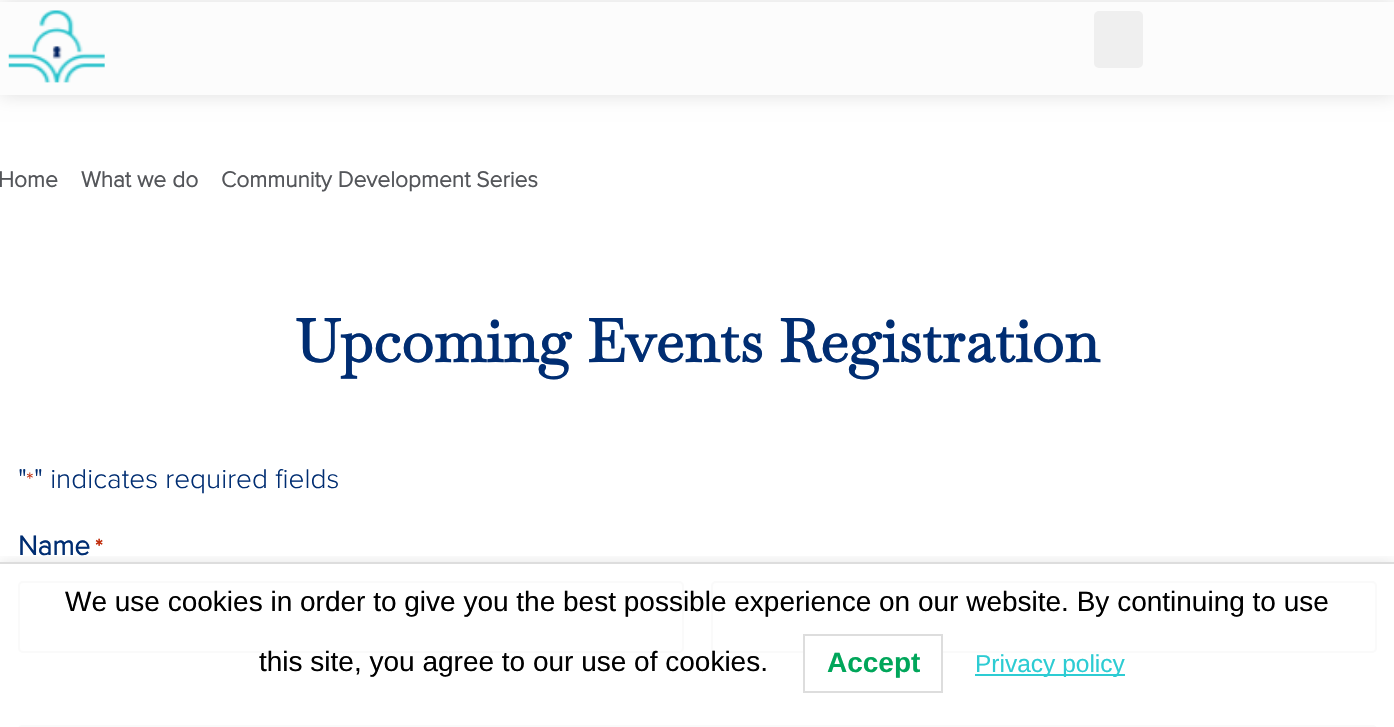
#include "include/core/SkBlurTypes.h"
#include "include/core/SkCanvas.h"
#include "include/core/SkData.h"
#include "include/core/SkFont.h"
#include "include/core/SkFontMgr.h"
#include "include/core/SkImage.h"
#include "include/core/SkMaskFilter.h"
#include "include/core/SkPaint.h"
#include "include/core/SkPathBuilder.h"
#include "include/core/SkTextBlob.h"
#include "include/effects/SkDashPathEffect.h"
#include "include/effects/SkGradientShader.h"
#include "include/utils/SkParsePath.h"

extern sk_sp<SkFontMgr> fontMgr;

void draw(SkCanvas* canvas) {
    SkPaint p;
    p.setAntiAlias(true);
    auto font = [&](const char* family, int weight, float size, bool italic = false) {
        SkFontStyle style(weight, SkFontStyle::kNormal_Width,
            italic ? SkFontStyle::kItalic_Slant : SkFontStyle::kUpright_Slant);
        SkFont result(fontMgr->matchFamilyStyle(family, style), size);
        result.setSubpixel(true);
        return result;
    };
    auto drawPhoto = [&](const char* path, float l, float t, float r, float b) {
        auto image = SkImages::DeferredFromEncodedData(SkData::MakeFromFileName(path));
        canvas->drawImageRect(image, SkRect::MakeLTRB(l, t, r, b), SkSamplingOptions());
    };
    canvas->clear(0xFFFFFFFF);
    p.setColor(0x21000000);
    p.setMaskFilter(SkMaskFilter::MakeBlur(kNormal_SkBlurStyle, 9));
    canvas->drawRect(SkRect::MakeLTRB(0, 2, 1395, 95), p);
    p.setMaskFilter(nullptr);
    p.setColor(0xFFFCFCFC);
    canvas->drawRect(SkRect::MakeLTRB(0, 2, 1394, 95), p);
    drawPhoto("media/1.png", 8, 10, 105, 83);
    p.setColor(0xFFEFEFEF);
    canvas->drawRoundRect(SkRect::MakeLTRB(1094, 11, 1143, 68), 5, 5, p);
    auto font1 = font("Proxima Nova", 700, 22.75f);
    p.setColor(0xFF54565A);
    {
        const struct { const char* s; float x, y; } items[] = {
            {"Home", -2, 187},
            {"What we do", 81, 187},
            {"Community Development Series", 221, 187},
        };
        for (auto [s, x, y] : items) {
            canvas->drawString(s, x, y, font1, p);
        }
    }
    auto font2 = font("Baskervville", 700, 59.5f);
    p.setColor(0xFF002D72);
    canvas->drawString("Upcoming Events Registration", 295, 362, font2, p);
    auto font3 = font("Proxima Nova", 300, 28);
    canvas->drawString("\"", 18, 488, font3, p);
    auto font4 = font("Proxima Nova", 300, 23);
    p.setColor(0xFFC02B0A);
    canvas->drawString("*", 26, 488, font4, p);
    p.setColor(0xFF002D72);
    canvas->drawString("\" indicates required fields", 34, 488, font3, p);
    auto font5 = font("Proxima Nova", 700, 28);
    canvas->drawString("Name", 18, 555, font5, p);
    auto font6 = font("Proxima Nova", 700, 23);
    p.setColor(0xFFC02B0A);
    canvas->drawString("*", 95, 555, font6, p);
    p.setStyle(SkPaint::kStroke_Style);
    p.setStrokeWidth(2);
    p.setColor(0xFFFAFAFA);
    canvas->drawRoundRect(SkRect::MakeLTRB(19, 582, 683, 652), 4, 4, p);
    canvas->drawRoundRect(SkRect::MakeLTRB(712, 582, 1376, 652), 4, 4, p);
    canvas->drawRoundRect(SkRect::MakeLTRB(19, 726, 1376, 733), 4, 4, p);
    canvas->save();
    canvas->clipRect(SkRect::MakeLTRB(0, 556, 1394, 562));
    p.setStyle(SkPaint::kFill_Style);
    p.setColor(0x1A000000);
    p.setMaskFilter(SkMaskFilter::MakeBlur(kNormal_SkBlurStyle, 7));
    canvas->drawRect(SkRect::MakeLTRB(0, 562, 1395, 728), p);
    p.setMaskFilter(nullptr);
    canvas->restore();
    p.setColor(0xFFDDDDDD);
    canvas->drawRect(SkRect::MakeLTRB(0, 562, 1394, 564), p);
    auto font7 = font("Liberation Sans", 400, 28);
    p.setColor(0xFF000000);
    canvas->drawString("We use cookies in order to give you the best possible experience on our website. By continuing to use", 65, 611, font7, p);
    canvas->drawString("this site, you agree to our use of cookies.", 259, 671, font7, p);
    p.setColor(0xFFFFFFFF);
    canvas->drawRect(SkRect::MakeLTRB(805, 651, 941, 653), p);
    p.setStyle(SkPaint::kStroke_Style);
    p.setColor(0xFFDDDDDD);
    canvas->drawRect(SkRect::MakeLTRB(804, 635, 942, 692), p);
    auto font8 = font("Liberation Sans", 700, 28);
    p.setStyle(SkPaint::kFill_Style);
    p.setColor(0xFF00A65A);
    canvas->drawString("Accept", 827, 672, font8, p);
    p.setColor(0xFF2DCCD3);
    canvas->drawRect(SkRect::MakeLTRB(975, 674, 1125, 676), p);
    auto font9 = font("Liberation Sans", 400, 24.5f);
    canvas->drawString("Privacy policy", 975, 672, font9, p);
}
